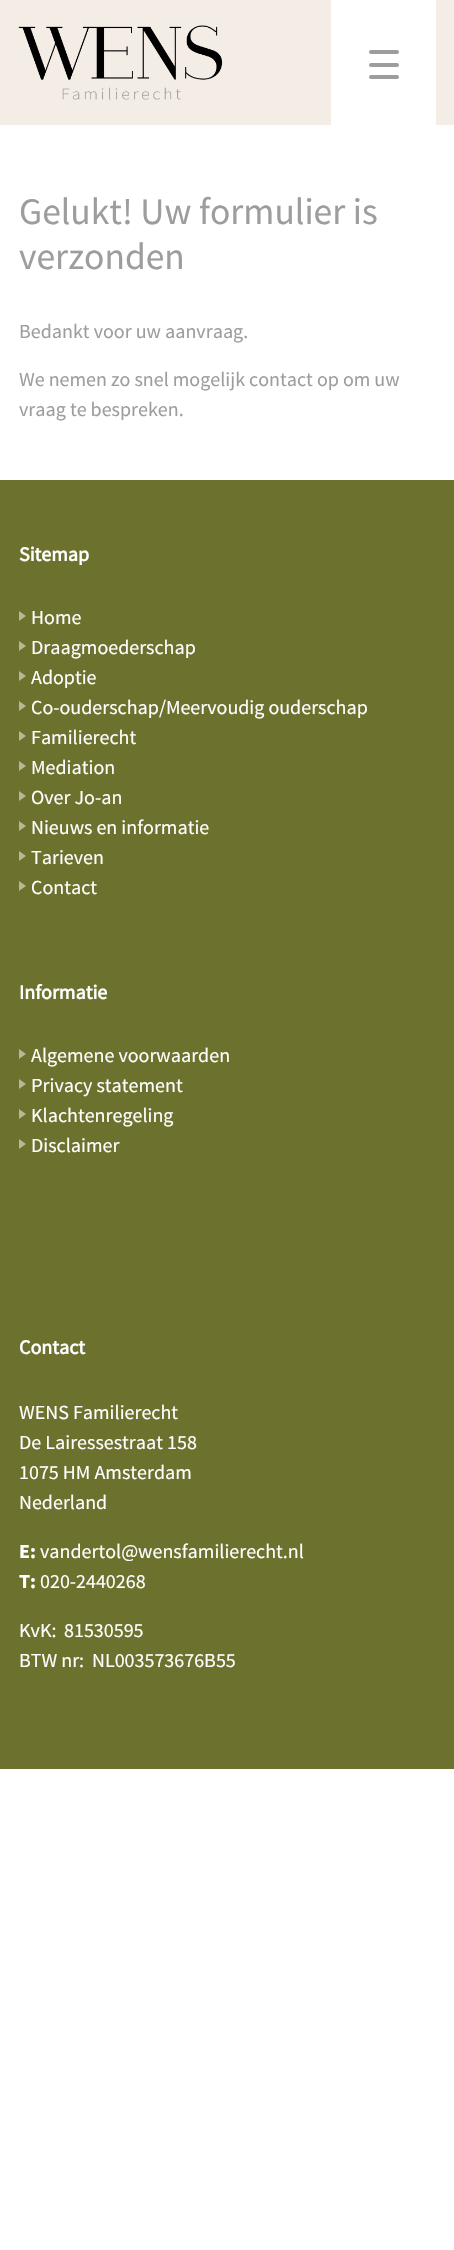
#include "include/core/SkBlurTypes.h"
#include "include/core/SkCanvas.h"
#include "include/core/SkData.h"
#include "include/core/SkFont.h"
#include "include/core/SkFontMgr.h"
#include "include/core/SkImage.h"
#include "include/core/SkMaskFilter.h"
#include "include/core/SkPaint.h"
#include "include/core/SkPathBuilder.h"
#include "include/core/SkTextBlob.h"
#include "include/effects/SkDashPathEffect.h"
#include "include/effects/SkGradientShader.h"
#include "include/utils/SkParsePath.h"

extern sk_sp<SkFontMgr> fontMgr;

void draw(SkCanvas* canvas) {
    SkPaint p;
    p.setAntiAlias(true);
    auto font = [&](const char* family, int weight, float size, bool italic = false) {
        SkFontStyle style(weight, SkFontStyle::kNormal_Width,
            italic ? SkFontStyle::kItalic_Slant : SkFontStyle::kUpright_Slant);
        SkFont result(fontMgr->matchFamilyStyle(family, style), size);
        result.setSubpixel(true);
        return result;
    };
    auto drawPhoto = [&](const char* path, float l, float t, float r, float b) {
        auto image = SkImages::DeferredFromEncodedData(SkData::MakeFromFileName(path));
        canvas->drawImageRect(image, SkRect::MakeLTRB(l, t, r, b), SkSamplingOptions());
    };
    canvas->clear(0xFFFFFFFF);
    p.setColor(0xFFF4EDE6);
    canvas->drawRect(SkRect::MakeLTRB(0, 0, 454, 125), p);
    drawPhoto("media/1.png", 18, 25, 223, 100);
    p.setColor(0xFFFFFFFF);
    canvas->drawRect(SkRect::MakeLTRB(331, 0, 436, 125), p);
    p.setColor(0xFF9D9D9C);
    canvas->drawRoundRect(SkRect::MakeLTRB(369, 50, 399, 54), 2, 2, p);
    canvas->drawRoundRect(SkRect::MakeLTRB(369, 63, 399, 67), 2, 2, p);
    canvas->drawRoundRect(SkRect::MakeLTRB(369, 75, 399, 79), 2, 2, p);
    auto font1 = font("Source Sans Pro", 400, 37.5f);
    canvas->drawString("Gelukt! Uw formulier is", 19, 224, font1, p);
    canvas->drawString("verzonden", 19, 269, font1, p);
    auto font2 = font("Source Sans Pro", 400, 20);
    {
        const struct { const char* s; float x, y; } items[] = {
            {"Bedankt voor uw aanvraag.", 19, 338},
            {"We nemen zo snel mogelijk contact op om uw", 19, 386},
            {"vraag te bespreken.", 19, 416},
        };
        for (auto [s, x, y] : items) {
            canvas->drawString(s, x, y, font2, p);
        }
    }
    p.setColor(0xFF6C712E);
    canvas->drawRect(SkRect::MakeLTRB(0, 480, 454, 1769), p);
    auto font3 = font("Source Sans Pro", 700, 20);
    p.setColor(0xFFFFFFFF);
    canvas->drawString("Sitemap", 19, 561, font3, p);
    p.setColor(0xFFB6B897);
    canvas->drawPath(SkPathBuilder().moveTo(19, 621).lineTo(19, 611).lineTo(26, 616).close().detach(), p);
    p.setColor(0xFFFFFFFF);
    canvas->drawString("Home", 31, 624, font2, p);
    p.setColor(0xFFB6B897);
    canvas->drawPath(SkPathBuilder().moveTo(19, 651).lineTo(19, 641).lineTo(26, 646).close().detach(), p);
    p.setColor(0xFFFFFFFF);
    canvas->drawString("Draagmoederschap", 31, 654, font2, p);
    p.setColor(0xFFB6B897);
    canvas->drawPath(SkPathBuilder().moveTo(19, 681).lineTo(19, 671).lineTo(26, 676).close().detach(), p);
    p.setColor(0xFFFFFFFF);
    canvas->drawString("Adoptie", 31, 684, font2, p);
    p.setColor(0xFFB6B897);
    canvas->drawPath(SkPathBuilder().moveTo(19, 711).lineTo(19, 701).lineTo(26, 706).close().detach(), p);
    p.setColor(0xFFFFFFFF);
    canvas->drawString("Co-ouderschap/Meervoudig ouderschap", 31, 714, font2, p);
    p.setColor(0xFFB6B897);
    canvas->drawPath(SkPathBuilder().moveTo(19, 741).lineTo(19, 731).lineTo(26, 736).close().detach(), p);
    p.setColor(0xFFFFFFFF);
    canvas->drawString("Familierecht", 31, 744, font2, p);
    p.setColor(0xFFB6B897);
    canvas->drawPath(SkPathBuilder().moveTo(19, 771).lineTo(19, 761).lineTo(26, 766).close().detach(), p);
    p.setColor(0xFFFFFFFF);
    canvas->drawString("Mediation", 31, 774, font2, p);
    p.setColor(0xFFB6B897);
    canvas->drawPath(SkPathBuilder().moveTo(19, 801).lineTo(19, 791).lineTo(26, 796).close().detach(), p);
    p.setColor(0xFFFFFFFF);
    canvas->drawString("Over Jo-an", 31, 804, font2, p);
    p.setColor(0xFFB6B897);
    canvas->drawPath(SkPathBuilder().moveTo(19, 831).lineTo(19, 821).lineTo(26, 826).close().detach(), p);
    p.setColor(0xFFFFFFFF);
    canvas->drawString("Nieuws en informatie", 31, 834, font2, p);
    p.setColor(0xFFB6B897);
    canvas->drawPath(SkPathBuilder().moveTo(19, 861).lineTo(19, 851).lineTo(26, 856).close().detach(), p);
    p.setColor(0xFFFFFFFF);
    canvas->drawString("Tarieven", 31, 864, font2, p);
    p.setColor(0xFFB6B897);
    canvas->drawPath(SkPathBuilder().moveTo(19, 891).lineTo(19, 881).lineTo(26, 886).close().detach(), p);
    p.setColor(0xFFFFFFFF);
    canvas->drawString("Contact", 31, 894, font2, p);
    canvas->drawString("Informatie", 19, 999, font3, p);
    p.setColor(0xFFB6B897);
    canvas->drawPath(SkPathBuilder().moveTo(19, 1059).lineTo(19, 1049).lineTo(26, 1054).close().detach(), p);
    p.setColor(0xFFFFFFFF);
    canvas->drawString("Algemene voorwaarden", 31, 1062, font2, p);
    p.setColor(0xFFB6B897);
    canvas->drawPath(SkPathBuilder().moveTo(19, 1089).lineTo(19, 1079).lineTo(26, 1084).close().detach(), p);
    p.setColor(0xFFFFFFFF);
    canvas->drawString("Privacy statement", 31, 1092, font2, p);
    p.setColor(0xFFB6B897);
    canvas->drawPath(SkPathBuilder().moveTo(19, 1119).lineTo(19, 1109).lineTo(26, 1114).close().detach(), p);
    p.setColor(0xFFFFFFFF);
    canvas->drawString("Klachtenregeling", 31, 1122, font2, p);
    p.setColor(0xFFB6B897);
    canvas->drawPath(SkPathBuilder().moveTo(19, 1149).lineTo(19, 1139).lineTo(26, 1144).close().detach(), p);
    p.setColor(0xFFFFFFFF);
    canvas->drawString("Disclaimer", 31, 1152, font2, p);
    canvas->drawString("Contact", 19, 1354, font3, p);
    {
        const struct { const char* s; float x, y; } items[] = {
            {"WENS Familierecht", 19, 1419},
            {"De Lairessestraat 158", 19, 1449},
            {"1075 HM Amsterdam", 19, 1479},
            {"Nederland", 19, 1509},
        };
        for (auto [s, x, y] : items) {
            canvas->drawString(s, x, y, font2, p);
        }
    }
    auto font4 = font("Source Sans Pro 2", 700, 20);
    canvas->drawString("E:", 19, 1558, font4, p);
    canvas->drawString("vandertol@wensfamilierecht.nl", 40, 1558, font2, p);
    canvas->drawString("T:", 19, 1588, font4, p);
    {
        const struct { const char* s; float x, y; } items[] = {
            {"020-2440268", 40, 1588},
            {"KvK:", 19, 1637},
            {"81530595", 64, 1637},
            {"BTW nr:", 19, 1667},
            {"NL003573676B55", 92, 1667},
        };
        for (auto [s, x, y] : items) {
            canvas->drawString(s, x, y, font2, p);
        }
    }
}
